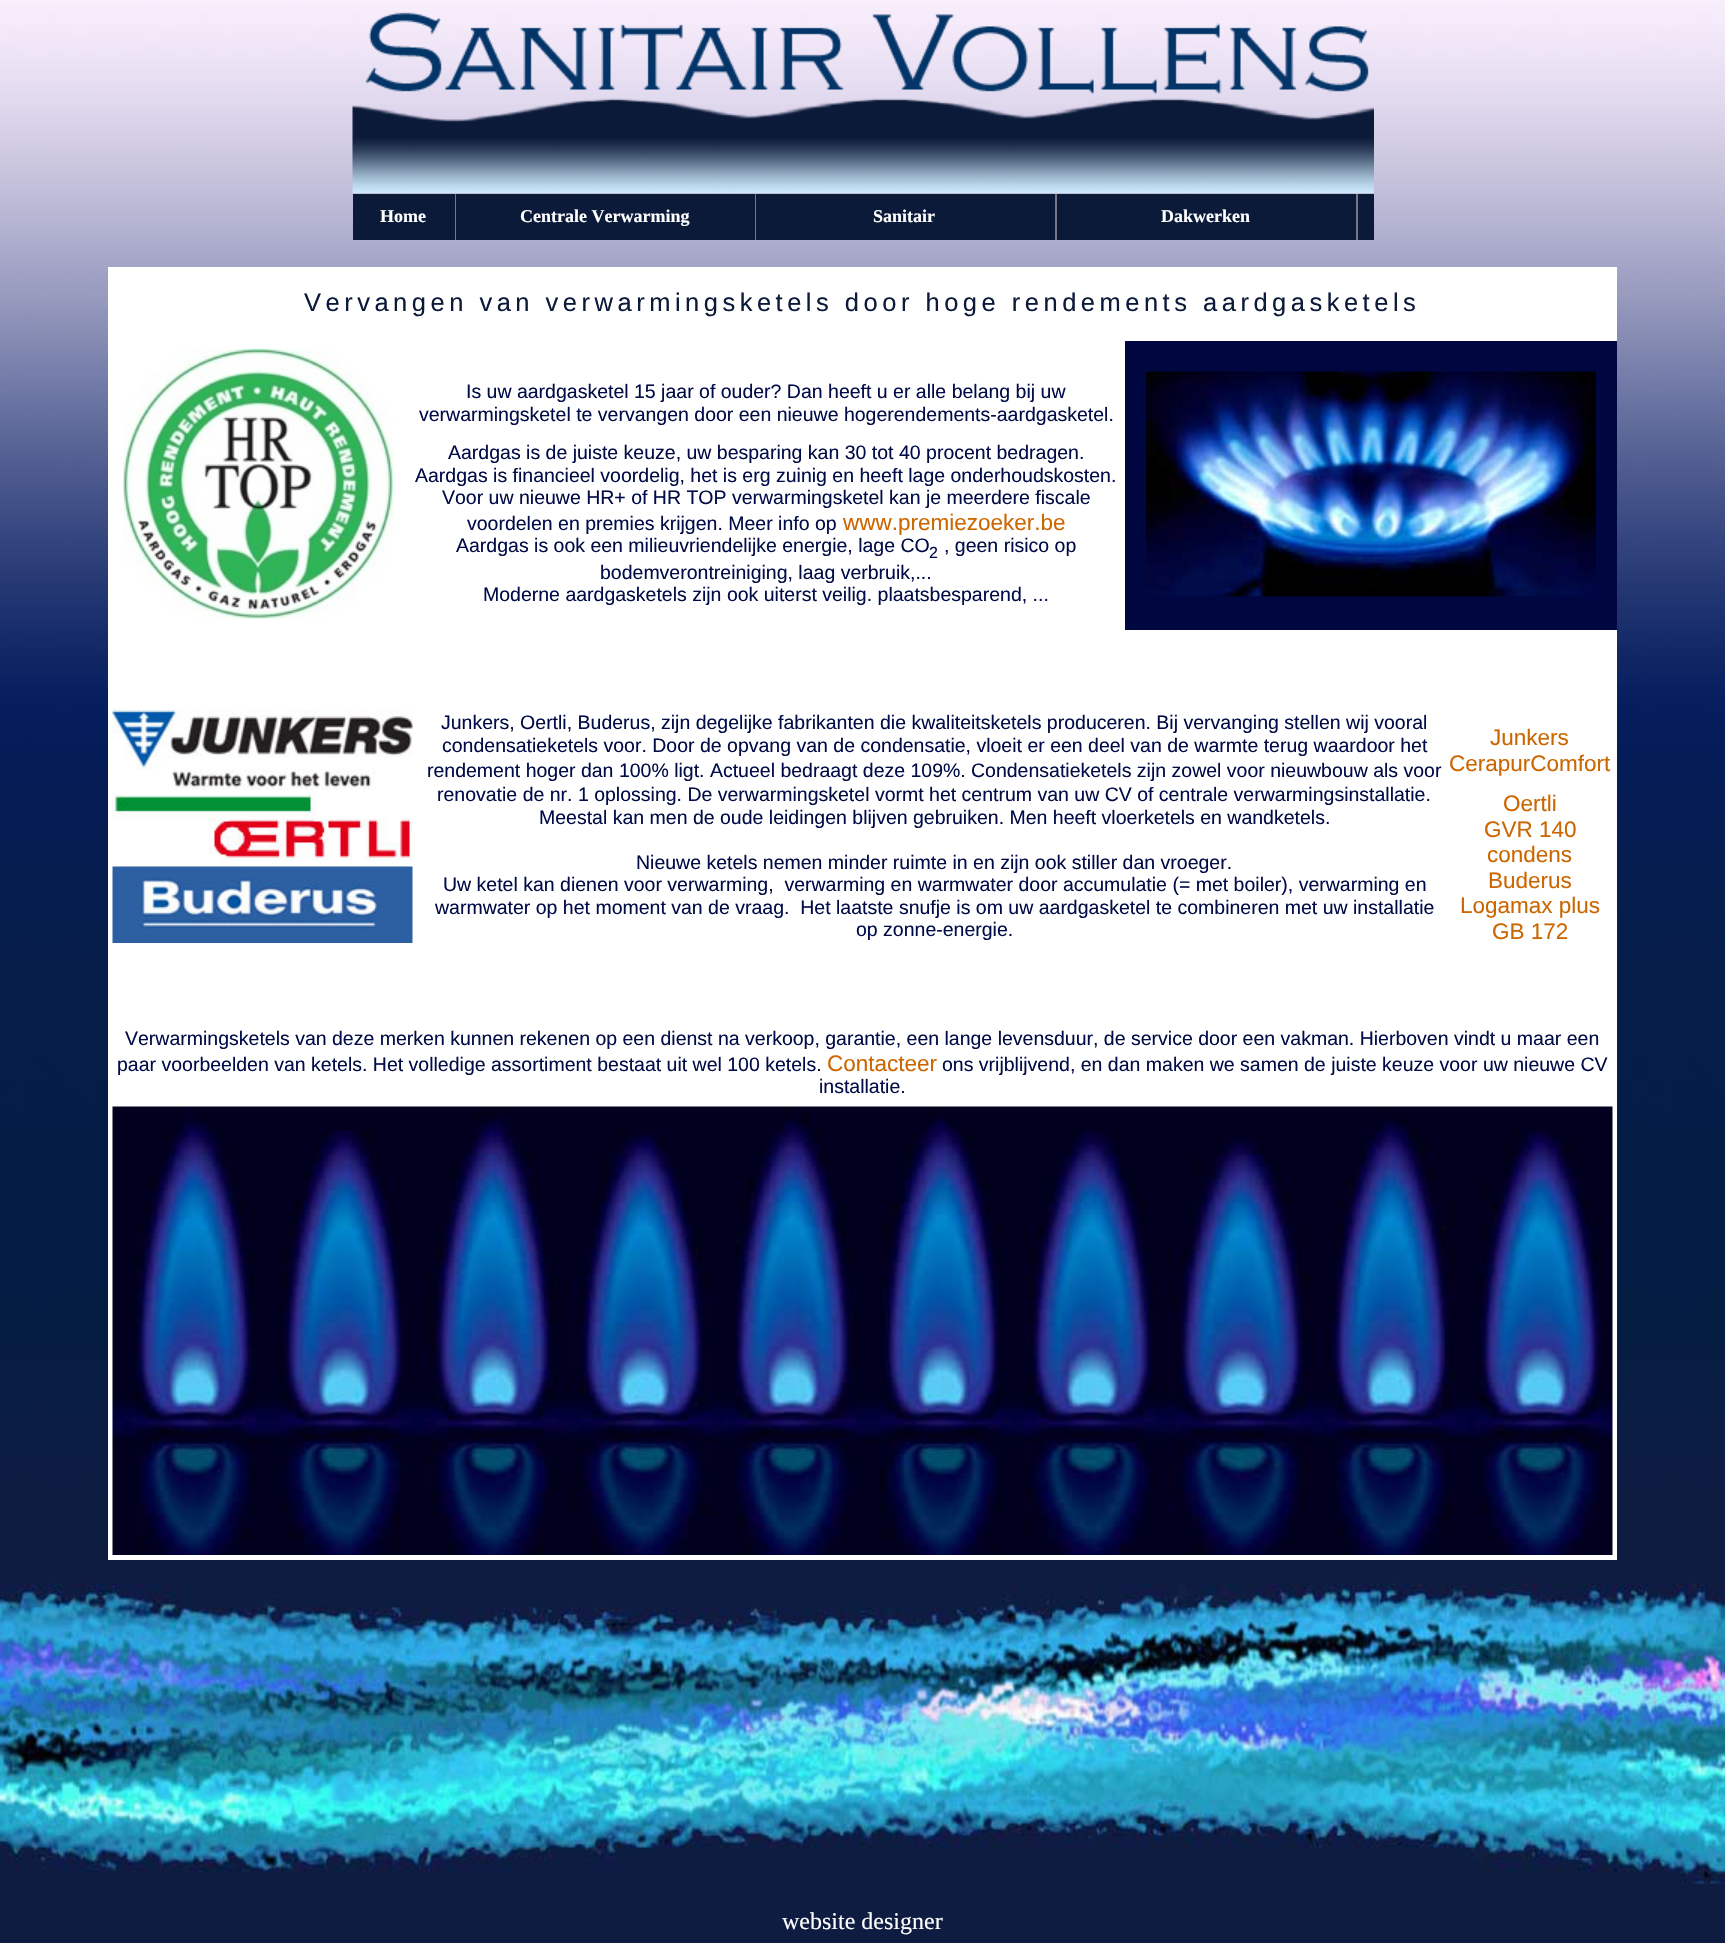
#include "include/core/SkBlurTypes.h"
#include "include/core/SkCanvas.h"
#include "include/core/SkData.h"
#include "include/core/SkFont.h"
#include "include/core/SkFontMgr.h"
#include "include/core/SkImage.h"
#include "include/core/SkMaskFilter.h"
#include "include/core/SkPaint.h"
#include "include/core/SkPathBuilder.h"
#include "include/core/SkTextBlob.h"
#include "include/effects/SkDashPathEffect.h"
#include "include/effects/SkGradientShader.h"
#include "include/utils/SkParsePath.h"

extern sk_sp<SkFontMgr> fontMgr;

void draw(SkCanvas* canvas) {
    SkPaint p;
    p.setAntiAlias(true);
    auto font = [&](const char* family, int weight, float size, bool italic = false) {
        SkFontStyle style(weight, SkFontStyle::kNormal_Width,
            italic ? SkFontStyle::kItalic_Slant : SkFontStyle::kUpright_Slant);
        SkFont result(fontMgr->matchFamilyStyle(family, style), size);
        result.setSubpixel(true);
        return result;
    };
    auto drawTracked = [&](const char* s, float x, float y, const SkFont& font, const SkPaint& ink, float letter, float word) {
        std::vector<SkGlyphID> glyphs(font.countText(s, strlen(s), SkTextEncoding::kUTF8));
        std::vector<float> xs(glyphs.size());
        font.textToGlyphs(s, strlen(s), SkTextEncoding::kUTF8, glyphs);
        font.getXPos(glyphs, xs, x);
        float extra = 0;
        for (size_t i = 0; i < glyphs.size(); i++) {
            xs[i] += extra;
            extra += letter + word * (glyphs[i] == font.unicharToGlyph(' '));
        }
        canvas->drawTextBlob(SkTextBlob::MakeFromPosHGlyphs(glyphs, xs, y, font), 0, 0, ink);
    };
    auto drawPhoto = [&](const char* path, float l, float t, float r, float b) {
        auto image = SkImages::DeferredFromEncodedData(SkData::MakeFromFileName(path));
        canvas->drawImageRect(image, SkRect::MakeLTRB(l, t, r, b), SkSamplingOptions());
    };
    canvas->clear(0xFFFFFFFF);
    drawPhoto("media/1.png", 0, 0, 1725, 1943);
    drawPhoto("media/2.png", 352, 12, 1374, 193);
    p.setColor(0xFF0B1A39);
    canvas->drawRect(SkRect::MakeLTRB(353, 194, 1374, 240), p);
    p.setColor(0xFF777788);
    canvas->drawRect(SkRect::MakeLTRB(455, 194, 456, 240), p);
    auto font1 = font("Liberation Serif", 700, 18);
    p.setColor(0xFFFFFFFF);
    canvas->drawString("Home", 380, 222, font1, p);
    p.setColor(0xFF777788);
    canvas->drawRect(SkRect::MakeLTRB(755, 194, 756, 240), p);
    p.setColor(0xFFFFFFFF);
    canvas->drawString("Centrale Verwarming", 520, 222, font1, p);
    p.setColor(0xFF777788);
    canvas->drawRect(SkRect::MakeLTRB(1055, 194, 1057, 240), p);
    p.setColor(0xFFFFFFFF);
    canvas->drawString("Sanitair", 873, 222, font1, p);
    p.setColor(0xFF777788);
    canvas->drawRect(SkRect::MakeLTRB(1356, 194, 1358, 240), p);
    p.setColor(0xFFFFFFFF);
    canvas->drawString("Dakwerken", 1161, 222, font1, p);
    canvas->drawRect(SkRect::MakeLTRB(108, 267, 1617, 1560), p);
    auto font2 = font("Liberation Sans", 400, 25.5f);
    p.setColor(0xFF0B1A39);
    drawTracked("Vervangen van verwarmingsketels door hoge rendements aardgasketels", 304, 311, font2, p, 4.5f, 0);
    drawPhoto("media/3.png", 123, 349, 393, 619);
    auto font3 = font("Liberation Sans", 400, 19.5f);
    p.setColor(0xFF000B47);
    {
        const struct { const char* s; float x, y; } items[] = {
            {"Is uw aardgasketel 15 jaar of ouder? Dan heeft u er alle belang bij uw", 466, 398},
            {"verwarmingsketel te vervangen door een nieuwe hogerendements-aardgasketel.", 419, 421},
            {"Aardgas is de juiste keuze, uw besparing kan 30 tot 40 procent bedragen.", 448, 459},
            {"Aardgas is financieel voordelig, het is erg zuinig en heeft lage onderhoudskosten.", 415, 482},
            {"Voor uw nieuwe HR+ of HR TOP verwarmingsketel kan je meerdere fiscale", 442, 504},
            {"voordelen en premies krijgen. Meer info op", 467, 530},
        };
        for (auto [s, x, y] : items) {
            canvas->drawString(s, x, y, font3, p);
        }
    }
    auto font4 = font("Liberation Sans", 400, 22.5f);
    p.setColor(0xFFCC6600);
    canvas->drawString("www.premiezoeker.be", 843, 530, font4, p);
    p.setColor(0xFF000B47);
    canvas->drawString("Aardgas is ook een milieuvriendelijke energie, lage CO", 456, 552, font3, p);
    auto font5 = font("Liberation Sans", 400, 16);
    canvas->drawString("2", 929, 558, font5, p);
    {
        const struct { const char* s; float x, y; } items[] = {
            {", geen risico op", 944, 552},
            {"bodemverontreiniging, laag verbruik,...", 600, 579},
            {"Moderne aardgasketels zijn ook uiterst veilig. plaatsbesparend, ...", 483, 601},
        };
        for (auto [s, x, y] : items) {
            canvas->drawString(s, x, y, font3, p);
        }
    }
    p.setColor(0xFF000640);
    canvas->drawRect(SkRect::MakeLTRB(1125, 341, 1617, 630), p);
    drawPhoto("media/4.png", 1146, 371, 1596, 597);
    drawPhoto("media/5.png", 112, 709, 413, 790);
    p.setColor(0xFF000B47);
    {
        const struct { const char* s; float x, y; } items[] = {
            {"Junkers, Oertli, Buderus, zijn degelijke fabrikanten die kwaliteitsketels produceren. Bij vervanging stellen wij vooral", 441, 729},
            {"condensatieketels voor. Door de opvang van de condensatie, vloeit er een deel van de warmte terug waardoor het", 442, 752},
            {"rendement hoger dan 100% ligt. Actueel bedraagt deze 109%.", 427, 777},
            {"Condensatieketels zijn zowel voor nieuwbouw als voor", 971, 777},
            {"renovatie de nr. 1 oplossing. De verwarmingsketel vormt het centrum van uw CV of centrale verwarmingsinstallatie.", 437, 801},
            {"Meestal kan men de oude leidingen blijven gebruiken. Men heeft vloerketels en wandketels.", 539, 824},
            {"Nieuwe ketels nemen minder ruimte in en zijn ook stiller dan vroeger.", 636, 869},
            {"Uw ketel kan dienen voor verwarming,  verwarming en warmwater door accumulatie (= met boiler), verwarming en", 443, 891},
            {"warmwater op het moment van de vraag.  Het laatste snufje is om uw aardgasketel te combineren met uw installatie", 435, 914},
            {"op zonne-energie.", 856, 936},
        };
        for (auto [s, x, y] : items) {
            canvas->drawString(s, x, y, font3, p);
        }
    }
    p.setColor(0xFFCC6600);
    canvas->drawString("Junkers", 1490, 745, font4, p);
    canvas->drawString("CerapurComfort", 1449, 771, font4, p);
    drawPhoto("media/6.png", 112, 794, 413, 861);
    {
        const struct { const char* s; float x, y; } items[] = {
            {"Oertli", 1503, 811},
            {"GVR 140", 1484, 837},
            {"condens", 1487, 862},
        };
        for (auto [s, x, y] : items) {
            canvas->drawString(s, x, y, font4, p);
        }
    }
    drawPhoto("media/7.png", 112, 866, 413, 943);
    {
        const struct { const char* s; float x, y; } items[] = {
            {"Buderus", 1488, 888},
            {"Logamax plus", 1460, 913},
            {"GB 172", 1492, 939},
        };
        for (auto [s, x, y] : items) {
            canvas->drawString(s, x, y, font4, p);
        }
    }
    p.setColor(0xFF000B47);
    canvas->drawString("Verwarmingsketels van deze merken kunnen rekenen op een dienst na verkoop, garantie, een lange levensduur, de service door een vakman. Hierboven vindt u maar een", 125, 1045, font3, p);
    canvas->drawString("paar voorbeelden van ketels. Het volledige assortiment bestaat uit wel 100 ketels.", 117, 1071, font3, p);
    p.setColor(0xFFCC6600);
    canvas->drawString("Contacteer", 827, 1071, font4, p);
    p.setColor(0xFF000B47);
    canvas->drawString("ons vrijblijvend, en dan maken we samen de juiste keuze voor uw nieuwe CV", 942, 1071, font3, p);
    canvas->drawString("installatie.", 819, 1093, font3, p);
    drawPhoto("media/8.png", 112, 1106, 1613, 1555);
    drawPhoto("media/9.png", 0, 1583, 1725, 1884);
    auto font6 = font("Liberation Serif", 400, 24);
    p.setColor(0xFFFFFFFF);
    canvas->drawString("website designer", 782, 1929, font6, p);
}
